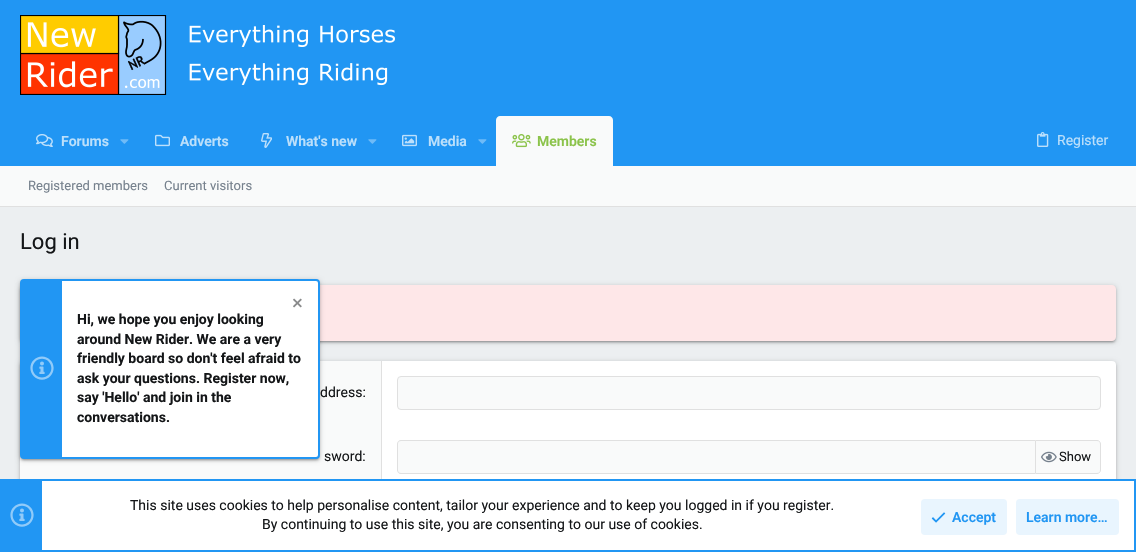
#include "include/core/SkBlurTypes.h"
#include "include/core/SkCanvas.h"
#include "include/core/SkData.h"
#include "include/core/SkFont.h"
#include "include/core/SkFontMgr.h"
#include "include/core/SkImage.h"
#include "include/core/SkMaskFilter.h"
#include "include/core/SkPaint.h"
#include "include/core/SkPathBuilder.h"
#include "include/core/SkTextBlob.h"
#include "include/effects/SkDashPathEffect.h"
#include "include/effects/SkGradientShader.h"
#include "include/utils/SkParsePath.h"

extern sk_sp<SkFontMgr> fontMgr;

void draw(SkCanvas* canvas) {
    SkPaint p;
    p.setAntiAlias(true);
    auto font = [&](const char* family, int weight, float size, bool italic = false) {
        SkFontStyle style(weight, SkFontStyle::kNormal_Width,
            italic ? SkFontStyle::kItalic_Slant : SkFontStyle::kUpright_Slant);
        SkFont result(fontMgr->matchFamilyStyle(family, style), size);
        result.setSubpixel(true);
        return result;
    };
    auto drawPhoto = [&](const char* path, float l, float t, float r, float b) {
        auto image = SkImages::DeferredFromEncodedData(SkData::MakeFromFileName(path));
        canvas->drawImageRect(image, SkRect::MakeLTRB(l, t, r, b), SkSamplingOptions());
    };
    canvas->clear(0xFFECEFF1);
    p.setColor(0xFF2196F3);
    canvas->drawRect(SkRect::MakeLTRB(0, 0, 1136, 166), p);
    drawPhoto("media/1.png", 20, 15, 395, 95);
    drawPhoto("media/2.png", 36, 134, 53, 147);
    auto font1 = font("Roboto", 600, 14);
    p.setColor(0xFFBCE0FB);
    canvas->drawString("Forums", 61, 146, font1, p);
    drawPhoto("media/3.png", 120, 139, 129, 144);
    drawPhoto("media/4.png", 155, 134, 170, 147);
    canvas->drawString("Adverts", 180, 146, font1, p);
    drawPhoto("media/5.png", 261, 133, 272, 148);
    canvas->drawString("What's new", 286, 146, font1, p);
    drawPhoto("media/3.png", 368, 139, 377, 144);
    drawPhoto("media/6.png", 402, 134, 417, 147);
    canvas->drawString("Media", 428, 146, font1, p);
    drawPhoto("media/3.png", 478, 139, 487, 144);
    p.setColor(0xFFF9FAFA);
    canvas->drawPath(SkPathBuilder().moveTo(500, 116).lineTo(609, 116).cubicTo(611, 116, 613, 118, 613, 120).lineTo(613, 166).lineTo(496, 166).lineTo(496, 120).cubicTo(496, 118, 498, 116, 500, 116).close().detach(), p);
    drawPhoto("media/7.png", 512, 134, 531, 148);
    p.setColor(0xFF8BC34A);
    canvas->drawString("Members", 537, 146, font1, p);
    drawPhoto("media/8.png", 1037, 132, 1049, 147);
    auto font2 = font("Roboto", 400, 14);
    p.setColor(0xFFBCE0FB);
    canvas->drawString("Register", 1057, 145, font2, p);
    p.setColor(0xFFF9FAFA);
    canvas->drawRect(SkRect::MakeLTRB(0, 166, 1136, 206), p);
    p.setColor(0xFFE0E0E0);
    canvas->drawRect(SkRect::MakeLTRB(0, 206, 1136, 207), p);
    auto font3 = font("Roboto", 400, 13);
    p.setColor(0xFF76818D);
    canvas->drawString("Registered members", 28, 190, font3, p);
    canvas->drawString("Current visitors", 164, 190, font3, p);
    auto font4 = font("Roboto", 400, 22);
    p.setColor(0xFF141618);
    canvas->drawString("Log in", 20, 249, font4, p);
    p.setColor(0x33000000);
    p.setMaskFilter(SkMaskFilter::MakeBlur(kNormal_SkBlurStyle, 2.5f));
    canvas->drawRoundRect(SkRect::MakeLTRB(20, 286, 1116, 342), 4, 4, p);
    p.setMaskFilter(nullptr);
    p.setColor(0x1F000000);
    p.setMaskFilter(SkMaskFilter::MakeBlur(kNormal_SkBlurStyle, 0.5f));
    canvas->drawRoundRect(SkRect::MakeLTRB(22, 290, 1114, 342), 2, 2, p);
    p.setMaskFilter(nullptr);
    p.setColor(0x24000000);
    p.setMaskFilter(SkMaskFilter::MakeBlur(kNormal_SkBlurStyle, 1));
    canvas->drawRoundRect(SkRect::MakeLTRB(20, 287, 1116, 343), 4, 4, p);
    p.setMaskFilter(nullptr);
    p.setColor(0xFFFEE7E8);
    canvas->drawPath(SkPathBuilder().moveTo(24, 285).lineTo(1112, 285).cubicTo(1114, 285, 1116, 287, 1116, 289).lineTo(1116, 337).cubicTo(1116, 339, 1114, 341, 1112, 341).lineTo(24, 341).cubicTo(23, 341, 22, 339, 22, 337).lineTo(22, 289).cubicTo(22, 287, 23, 285, 24, 285).close().detach(), p);
    p.setColor(0x33000000);
    p.setMaskFilter(SkMaskFilter::MakeBlur(kNormal_SkBlurStyle, 2.5f));
    canvas->drawRoundRect(SkRect::MakeLTRB(20, 362, 1116, 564), 4, 4, p);
    p.setMaskFilter(nullptr);
    p.setColor(0x24000000);
    p.setMaskFilter(SkMaskFilter::MakeBlur(kNormal_SkBlurStyle, 1));
    canvas->drawRoundRect(SkRect::MakeLTRB(20, 363, 1116, 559), 4, 4, p);
    p.setMaskFilter(nullptr);
    p.setColor(0xFFFFFFFF);
    canvas->drawRoundRect(SkRect::MakeLTRB(20, 361, 1116, 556), 4, 4, p);
    p.setColor(0xFFF9FAFA);
    canvas->drawRect(SkRect::MakeLTRB(320, 361, 381, 425), p);
    p.setColor(0xFFE0E0E0);
    canvas->drawRect(SkRect::MakeLTRB(381, 361, 382, 479), p);
    p.setColor(0xFF141618);
    canvas->drawString("ddress:", 320, 397, font2, p);
    p.setColor(0xFFF9FAFA);
    canvas->drawRoundRect(SkRect::MakeLTRB(397.5f, 376.5f, 1100.5f, 409.5f), 3.5f, 3.5f, p);
    p.setStyle(SkPaint::kStroke_Style);
    p.setStrokeWidth(1);
    p.setColor(0xFFE0E0E0);
    canvas->drawRoundRect(SkRect::MakeLTRB(397.5f, 376.5f, 1100.5f, 409.5f), 3.5f, 3.5f, p);
    p.setStyle(SkPaint::kFill_Style);
    p.setColor(0xFFF9FAFA);
    canvas->drawRect(SkRect::MakeLTRB(20, 425, 381, 479), p);
    p.setColor(0xFF141618);
    canvas->drawString("sword:", 324, 461, font2, p);
    p.setColor(0xFFF9FAFA);
    canvas->drawPath(SkPathBuilder().moveTo(401, 440).lineTo(1035, 440).lineTo(1035, 474).lineTo(401, 474).cubicTo(399, 474, 397, 472, 397, 470).lineTo(397, 444).cubicTo(397, 442, 399, 440, 401, 440).close().detach(), p);
    p.setColor(0xFFE0E0E0);
    canvas->drawPath(SkPathBuilder(SkPathFillType::kEvenOdd).moveTo(401, 440).lineTo(1035, 440).lineTo(1035, 474).lineTo(401, 474).cubicTo(399, 474, 397, 472, 397, 470).lineTo(397, 444).cubicTo(397, 442, 399, 440, 401, 440).close().moveTo(401, 441).lineTo(1035, 441).lineTo(1035, 473).lineTo(401, 473).cubicTo(399, 473, 398, 472, 398, 470).lineTo(398, 444).cubicTo(398, 442, 399, 441, 401, 441).close().detach(), p);
    p.setColor(0xFFF9FAFA);
    canvas->drawPath(SkPathBuilder().moveTo(1035.5f, 440.5f).lineTo(1097, 440.5f).cubicTo(1099, 440.5f, 1100.5f, 442, 1100.5f, 444).lineTo(1100.5f, 470).cubicTo(1100.5f, 472, 1099, 473.5f, 1097, 473.5f).lineTo(1035.5f, 473.5f).close().detach(), p);
    p.setStyle(SkPaint::kStroke_Style);
    p.setColor(0xFFE0E0E0);
    canvas->drawPath(SkPathBuilder().moveTo(1035.5f, 440.5f).lineTo(1097, 440.5f).cubicTo(1099, 440.5f, 1100.5f, 442, 1100.5f, 444).lineTo(1100.5f, 470).cubicTo(1100.5f, 472, 1099, 473.5f, 1097, 473.5f).lineTo(1035.5f, 473.5f).close().detach(), p);
    drawPhoto("media/9.png", 1041, 451, 1057, 463);
    p.setStyle(SkPaint::kFill_Style);
    p.setColor(0xFF141618);
    canvas->drawString("Show", 1059, 461, font3, p);
    p.setColor(0x33000000);
    p.setMaskFilter(SkMaskFilter::MakeBlur(kNormal_SkBlurStyle, 2.5f));
    canvas->drawRoundRect(SkRect::MakeLTRB(20, 280, 320, 460), 4, 4, p);
    p.setMaskFilter(nullptr);
    p.setColor(0x1F000000);
    p.setMaskFilter(SkMaskFilter::MakeBlur(kNormal_SkBlurStyle, 0.5f));
    canvas->drawRoundRect(SkRect::MakeLTRB(22, 284, 318, 460), 2, 2, p);
    p.setMaskFilter(nullptr);
    p.setColor(0x24000000);
    p.setMaskFilter(SkMaskFilter::MakeBlur(kNormal_SkBlurStyle, 1));
    canvas->drawRoundRect(SkRect::MakeLTRB(20, 281, 320, 461), 4, 4, p);
    p.setMaskFilter(nullptr);
    p.setColor(0xFFFFFFFF);
    canvas->drawRoundRect(SkRect::MakeLTRB(21, 280, 319, 458), 3, 3, p);
    p.setStyle(SkPaint::kStroke_Style);
    p.setStrokeWidth(2);
    p.setColor(0xFF2196F3);
    canvas->drawRoundRect(SkRect::MakeLTRB(21, 280, 319, 458), 3, 3, p);
    p.setStyle(SkPaint::kFill_Style);
    canvas->drawRect(SkRect::MakeLTRB(22, 281, 62, 457), p);
    drawPhoto("media/10.png", 30, 356, 54, 380);
    drawPhoto("media/11.png", 293, 298, 302, 308);
    auto font5 = font("Roboto", 700, 14);
    p.setColor(0xFF141618);
    {
        const struct { const char* s; float x, y; } items[] = {
            {"Hi, we hope you enjoy looking", 77, 324},
            {"around New Rider. We are a very", 77, 344},
            {"friendly board so don't feel afraid to", 77, 363},
            {"ask your questions. Register now,", 77, 383},
            {"say 'Hello' and join in the", 77, 402},
            {"conversations.", 77, 422},
        };
        for (auto [s, x, y] : items) {
            canvas->drawString(s, x, y, font5, p);
        }
    }
    p.setColor(0xFFFFFFFF);
    canvas->drawRect(SkRect::MakeLTRB(1116, 481, 1134, 550), p);
    p.setStyle(SkPaint::kStroke_Style);
    p.setColor(0xFF2196F3);
    canvas->drawRect(SkRect::MakeLTRB(1, 480, 1135, 551), p);
    p.setStyle(SkPaint::kFill_Style);
    canvas->drawRect(SkRect::MakeLTRB(2, 481, 42, 550), p);
    drawPhoto("media/10.png", 10, 503, 34, 527);
    p.setColor(0xFF141618);
    canvas->drawString("This site uses cookies to help personalise content, tailor your experience and to keep you logged in if you register.", 130, 510, font2, p);
    canvas->drawString("By continuing to use this site, you are consenting to our use of cookies.", 262, 529, font2, p);
    p.setColor(0xFFE9F5FE);
    canvas->drawRoundRect(SkRect::MakeLTRB(921, 499, 1007, 535), 4, 4, p);
    drawPhoto("media/12.png", 931, 512, 946, 523);
    p.setColor(0xFF2196F3);
    canvas->drawString("Accept", 952, 522, font1, p);
    p.setColor(0xFFE9F5FE);
    canvas->drawRoundRect(SkRect::MakeLTRB(1016, 499, 1119, 535), 4, 4, p);
    p.setColor(0xFF2196F3);
    canvas->drawString("Learn more…", 1026, 522, font1, p);
}
